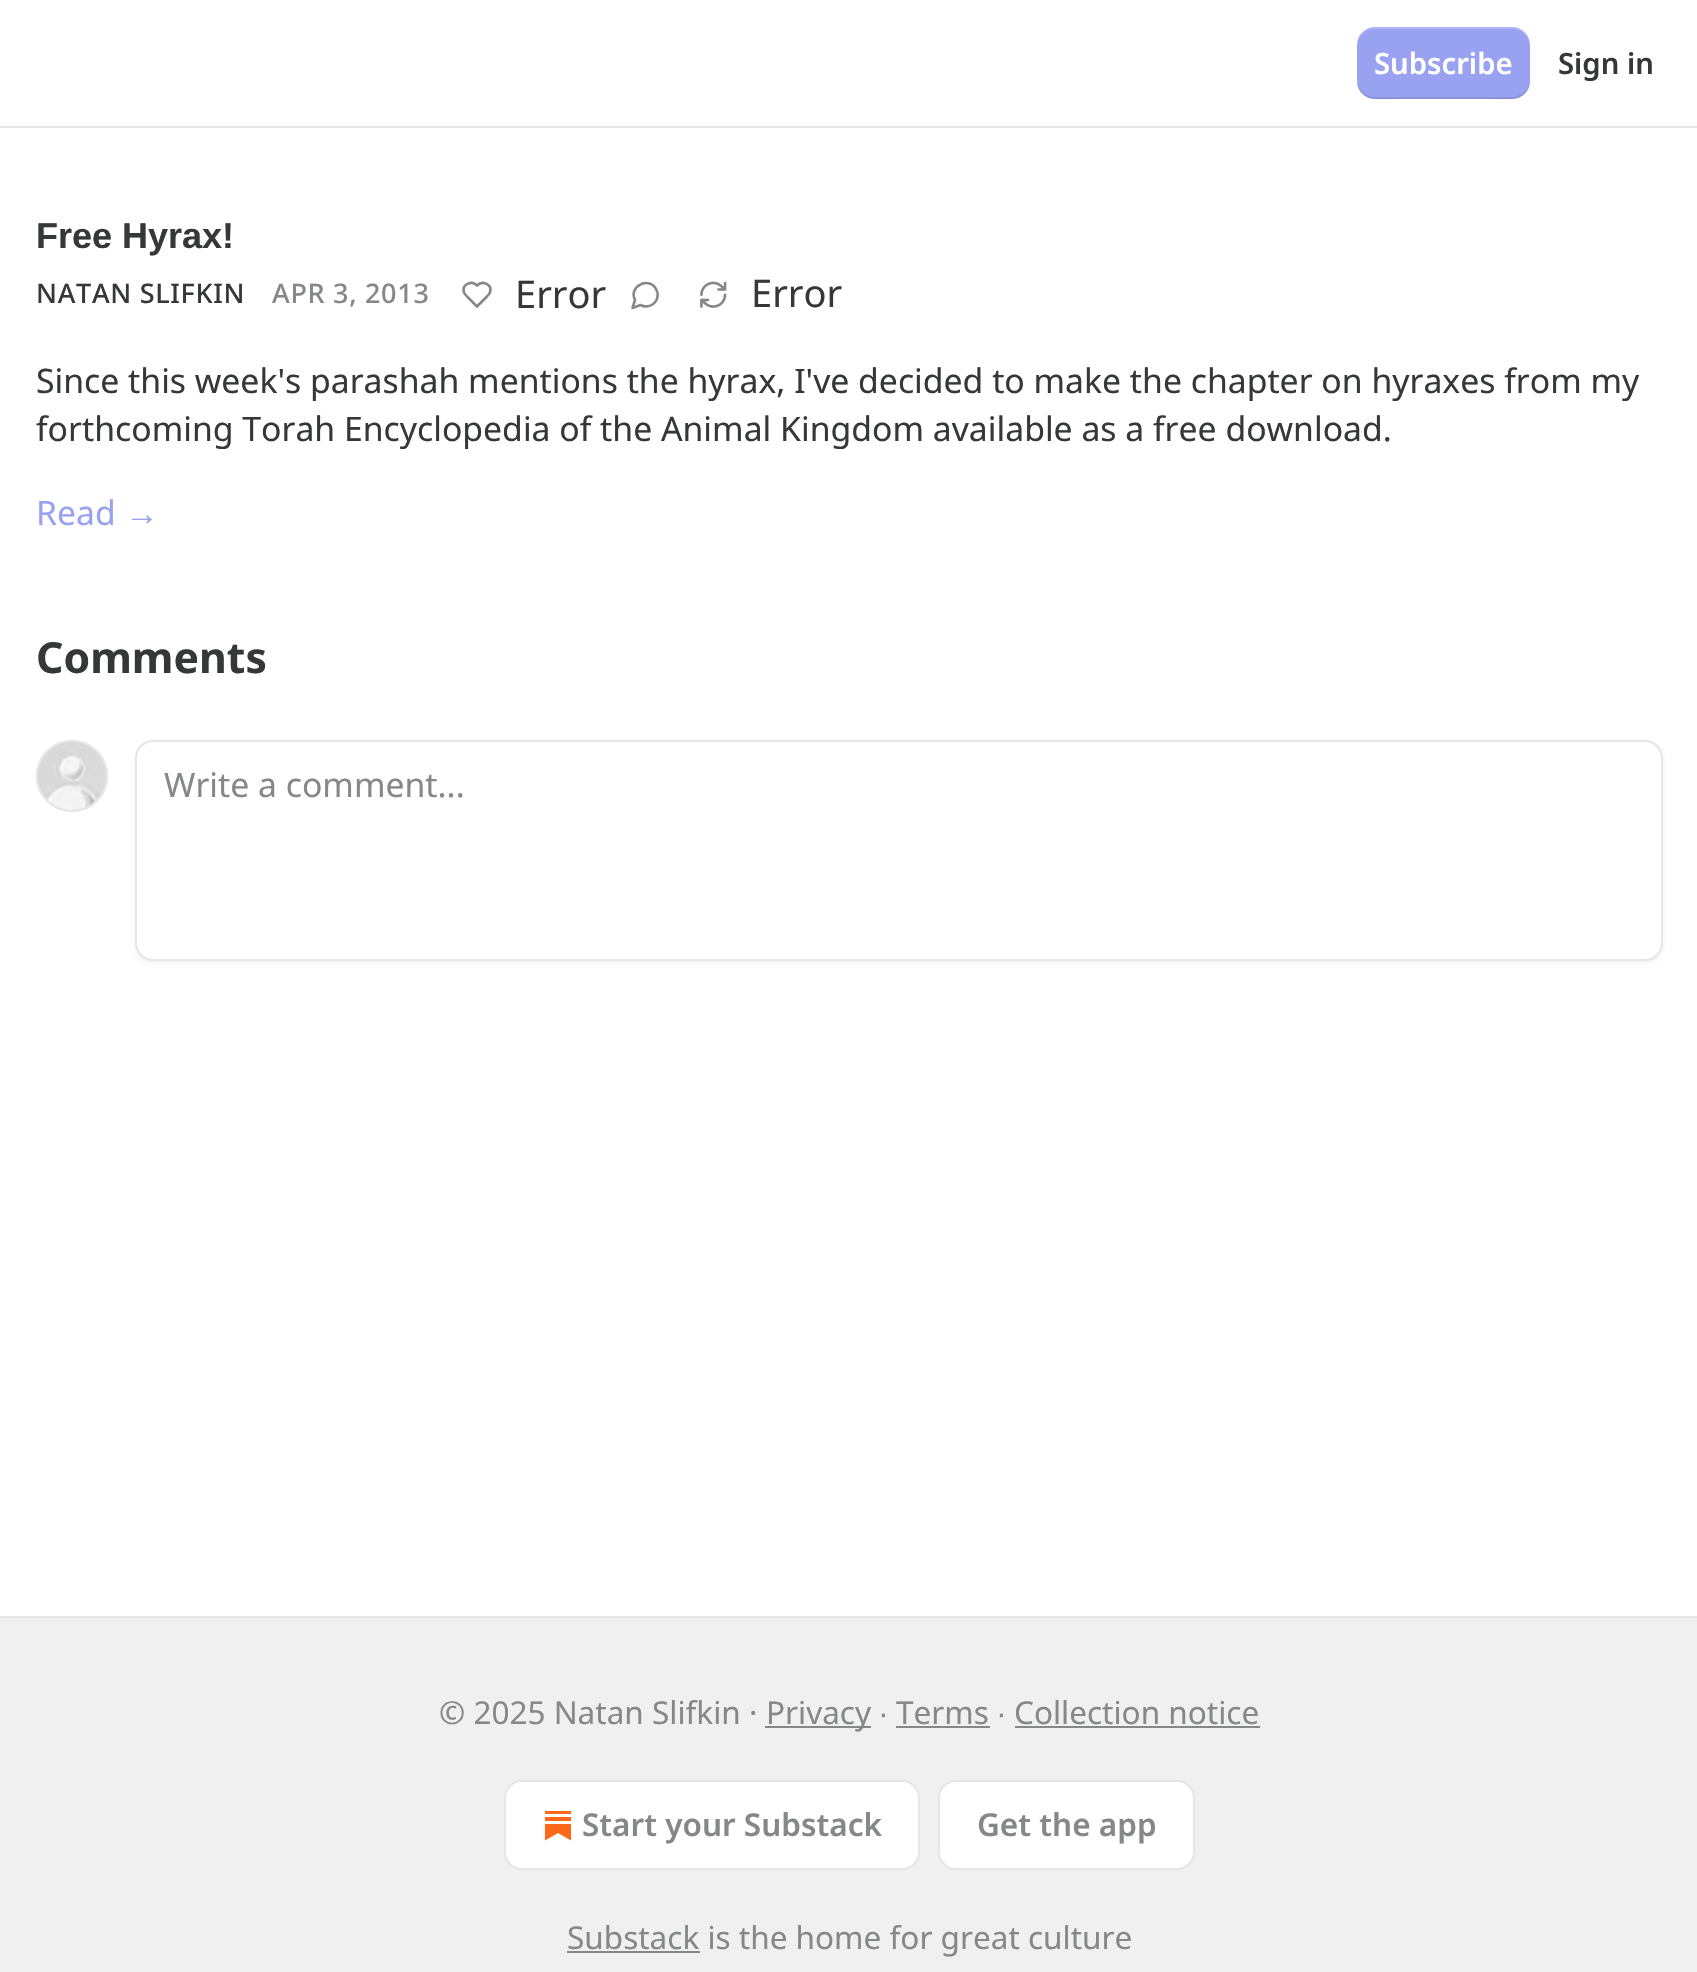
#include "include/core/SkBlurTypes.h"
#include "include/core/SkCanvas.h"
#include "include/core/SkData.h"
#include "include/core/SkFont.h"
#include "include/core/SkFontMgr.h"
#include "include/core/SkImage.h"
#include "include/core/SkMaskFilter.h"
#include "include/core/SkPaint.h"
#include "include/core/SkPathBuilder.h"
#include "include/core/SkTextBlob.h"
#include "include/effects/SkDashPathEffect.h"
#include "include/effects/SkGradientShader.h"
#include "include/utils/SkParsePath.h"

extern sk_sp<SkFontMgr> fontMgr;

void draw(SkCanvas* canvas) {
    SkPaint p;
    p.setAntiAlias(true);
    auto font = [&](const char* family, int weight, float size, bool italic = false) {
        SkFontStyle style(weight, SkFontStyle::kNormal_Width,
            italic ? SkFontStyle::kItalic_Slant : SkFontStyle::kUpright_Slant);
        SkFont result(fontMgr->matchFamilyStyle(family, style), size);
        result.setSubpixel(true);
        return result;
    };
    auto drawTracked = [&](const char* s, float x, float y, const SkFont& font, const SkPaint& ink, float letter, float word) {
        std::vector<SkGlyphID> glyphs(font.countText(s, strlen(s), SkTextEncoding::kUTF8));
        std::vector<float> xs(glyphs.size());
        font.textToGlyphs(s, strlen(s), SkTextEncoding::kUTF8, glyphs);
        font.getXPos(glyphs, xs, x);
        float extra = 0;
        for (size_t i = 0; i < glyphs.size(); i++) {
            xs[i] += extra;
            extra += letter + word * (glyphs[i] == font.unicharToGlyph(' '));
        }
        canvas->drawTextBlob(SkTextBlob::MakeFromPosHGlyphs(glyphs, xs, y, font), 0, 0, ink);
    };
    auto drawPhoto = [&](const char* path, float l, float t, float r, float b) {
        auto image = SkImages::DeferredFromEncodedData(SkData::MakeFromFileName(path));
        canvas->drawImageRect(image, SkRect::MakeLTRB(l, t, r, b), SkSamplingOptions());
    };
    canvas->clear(0xFFFFFFFF);
    p.setColor(0xFFE6E6E6);
    canvas->drawRect(SkRect::MakeLTRB(0, 126, 1697, 128), p);
    p.setColor(0xFF99A2F1);
    canvas->drawRoundRect(SkRect::MakeLTRB(1357, 27, 1530, 99), 18, 18, p);
    p.setColor(0x1A000000);
    canvas->drawPath(SkPathBuilder().moveTo(1357, 79).cubicTo(1357, 104, 1380, 99, 1398, 99).lineTo(1489, 99).cubicTo(1507, 99, 1530, 104, 1530, 79).cubicTo(1530, 89, 1522, 97, 1512, 97).lineTo(1375, 97).cubicTo(1365, 97, 1357, 89, 1357, 79).close().detach(), p);
    p.setColor(0x33FFFFFF);
    canvas->drawPath(SkPathBuilder().moveTo(1375, 29).lineTo(1512, 29).cubicTo(1522, 29, 1530, 37, 1530, 47).cubicTo(1530, 22, 1507, 27, 1489, 27).lineTo(1398, 27).cubicTo(1380, 27, 1357, 22, 1357, 47).cubicTo(1357, 37, 1365, 29, 1375, 29).close().detach(), p);
    auto font1 = font("Noto Sans", 600, 29.25f);
    p.setColor(0xFFFFFFFF);
    canvas->drawString("Subscribe", 1374, 74, font1, p);
    p.setColor(0xFF363737);
    canvas->drawString("Sign in", 1558, 74, font1, p);
    auto font2 = font("Liberation Sans", 700, 36);
    canvas->drawString("Free Hyrax!", 36, 248, font2, p);
    auto font3 = font("Noto Sans", 500, 27);
    drawTracked("NATAN SLIFKIN", 36, 303, font3, p, 0.7f, 0);
    p.setColor(0xFF868787);
    drawTracked("APR 3, 2013", 272, 303, font3, p, 0.7f, 0);
    p.setStyle(SkPaint::kStroke_Style);
    p.setStrokeWidth(2.6f);
    p.setStrokeCap(SkPaint::kRound_Cap);
    p.setStrokeJoin(SkPaint::kRound_Join);
    canvas->drawPath(SkPathBuilder().moveTo(486, 297.5f).cubicTo(487.5f, 296, 489, 294.5f, 490, 292.5f).cubicTo(492.5f, 284.5f, 482.5f, 280, 477, 285.5f).cubicTo(471.5f, 280, 461.5f, 284.5f, 464, 292.5f).cubicTo(465.5f, 295.5f, 468.5f, 298, 471, 300.5f).lineTo(477, 306.5f).close().detach(), p);
    auto font4 = font("Noto Sans", 400, 38);
    p.setStyle(SkPaint::kFill_Style);
    p.setColor(0xFF363737);
    canvas->drawString("Error", 515, 308, font4, p);
    p.setStyle(SkPaint::kStroke_Style);
    p.setColor(0xFF868787);
    canvas->drawPath(SkPathBuilder().moveTo(640.5f, 305).cubicTo(646, 308, 653.5f, 306, 656.5f, 300).cubicTo(658, 296.5f, 658, 293, 656.5f, 290).cubicTo(650, 275.5f, 628, 286, 635, 300).lineTo(632.5f, 308).close().detach(), p);
    drawPhoto("media/1.png", 700, 281, 727, 308);
    p.setStyle(SkPaint::kFill_Style);
    p.setColor(0xFF363737);
    canvas->drawString("Error", 751, 307, font4, p);
    auto font5 = font("Noto Sans", 400, 33.75f);
    canvas->drawString("Since this week's parashah mentions the hyrax, I've decided to make the chapter on hyraxes from my", 36, 393, font5, p);
    canvas->drawString("forthcoming Torah Encyclopedia of the Animal Kingdom available as a free download.", 36, 441, font5, p);
    p.setColor(0xFF99A2F1);
    canvas->drawString("Read", 36, 525, font5, p);
    auto font6 = font("Liberation Sans", 400, 33.75f);
    canvas->drawString("→", 125, 525, font6, p);
    auto font7 = font("Noto Sans", 700, 42.75f);
    p.setColor(0xFF363737);
    canvas->drawString("Comments", 36, 673, font7, p);
    p.setStyle(SkPaint::kStroke_Style);
    p.setStrokeWidth(2);
    p.setStrokeCap(SkPaint::kButt_Cap);
    p.setStrokeJoin(SkPaint::kMiter_Join);
    p.setColor(0xFFE6E6E6);
    canvas->drawCircle(72, 776, 35, p);
    drawPhoto("media/2.png", 36, 740, 108, 812);
    canvas->drawCircle(72, 776, 35, p);
    p.setStyle(SkPaint::kFill_Style);
    p.setColor(0x0D000000);
    p.setMaskFilter(SkMaskFilter::MakeBlur(kNormal_SkBlurStyle, 2));
    canvas->drawRoundRect(SkRect::MakeLTRB(135, 743, 1663, 963), 18, 18, p);
    p.setMaskFilter(nullptr);
    p.setColor(0xFFFFFFFF);
    canvas->drawRoundRect(SkRect::MakeLTRB(136, 741, 1662, 960), 17, 17, p);
    p.setStyle(SkPaint::kStroke_Style);
    p.setColor(0xFFE6E6E6);
    canvas->drawRoundRect(SkRect::MakeLTRB(136, 741, 1662, 960), 17, 17, p);
    p.setStyle(SkPaint::kFill_Style);
    p.setColor(0xFF868787);
    canvas->drawString("Write a comment...", 164, 797, font5, p);
    p.setColor(0xFFF0F0F0);
    canvas->drawRect(SkRect::MakeLTRB(0, 1618, 1697, 1972), p);
    p.setColor(0xFFE6E6E6);
    canvas->drawRect(SkRect::MakeLTRB(0, 1616, 1697, 1618), p);
    auto font8 = font("Noto Sans", 400, 31.5f);
    p.setColor(0xFF868787);
    canvas->drawString("© 2025 Natan Slifkin ·", 439, 1724, font8, p);
    canvas->drawRect(SkRect::MakeLTRB(765, 1726, 871, 1728), p);
    canvas->drawString("Privacy", 766, 1724, font8, p);
    auto font9 = font("Liberation Sans", 400, 31.5f);
    canvas->drawString("∙", 879, 1724, font9, p);
    canvas->drawString("Terms", 896, 1724, font8, p);
    canvas->drawRect(SkRect::MakeLTRB(896, 1726, 990, 1728), p);
    canvas->drawString("∙", 997, 1724, font9, p);
    canvas->drawString("Collection notice", 1014, 1724, font8, p);
    canvas->drawRect(SkRect::MakeLTRB(1015, 1726, 1260, 1728), p);
    p.setColor(0xFFFFFFFF);
    canvas->drawRoundRect(SkRect::MakeLTRB(505, 1781, 919, 1869), 17, 17, p);
    p.setStyle(SkPaint::kStroke_Style);
    p.setColor(0xFFE6E6E6);
    canvas->drawRoundRect(SkRect::MakeLTRB(505, 1781, 919, 1869), 17, 17, p);
    p.setStyle(SkPaint::kFill_Style);
    p.setColor(0xFFFF6719);
    canvas->drawRect(SkRect::MakeLTRB(545, 1817, 571, 1821), p);
    canvas->drawPath(SkPathBuilder().moveTo(545, 1824).lineTo(545, 1840.5f).lineTo(558, 1833).lineTo(571, 1840.5f).lineTo(571, 1824).close().detach(), p);
    canvas->drawRect(SkRect::MakeLTRB(545, 1811, 571, 1814), p);
    auto font10 = font("Noto Sans", 600, 31.5f);
    p.setColor(0xFF868787);
    canvas->drawString("Start your Substack", 582, 1836, font10, p);
    p.setColor(0xFFFFFFFF);
    canvas->drawRoundRect(SkRect::MakeLTRB(939, 1781, 1194, 1869), 17, 17, p);
    p.setStyle(SkPaint::kStroke_Style);
    p.setColor(0xFFE6E6E6);
    canvas->drawRoundRect(SkRect::MakeLTRB(939, 1781, 1194, 1869), 17, 17, p);
    p.setStyle(SkPaint::kFill_Style);
    p.setColor(0xFF868787);
    canvas->drawString("Get the app", 977, 1836, font10, p);
    canvas->drawRect(SkRect::MakeLTRB(567, 1951, 700, 1953), p);
    canvas->drawString("Substack is the home for great culture", 567, 1949, font8, p);
}
